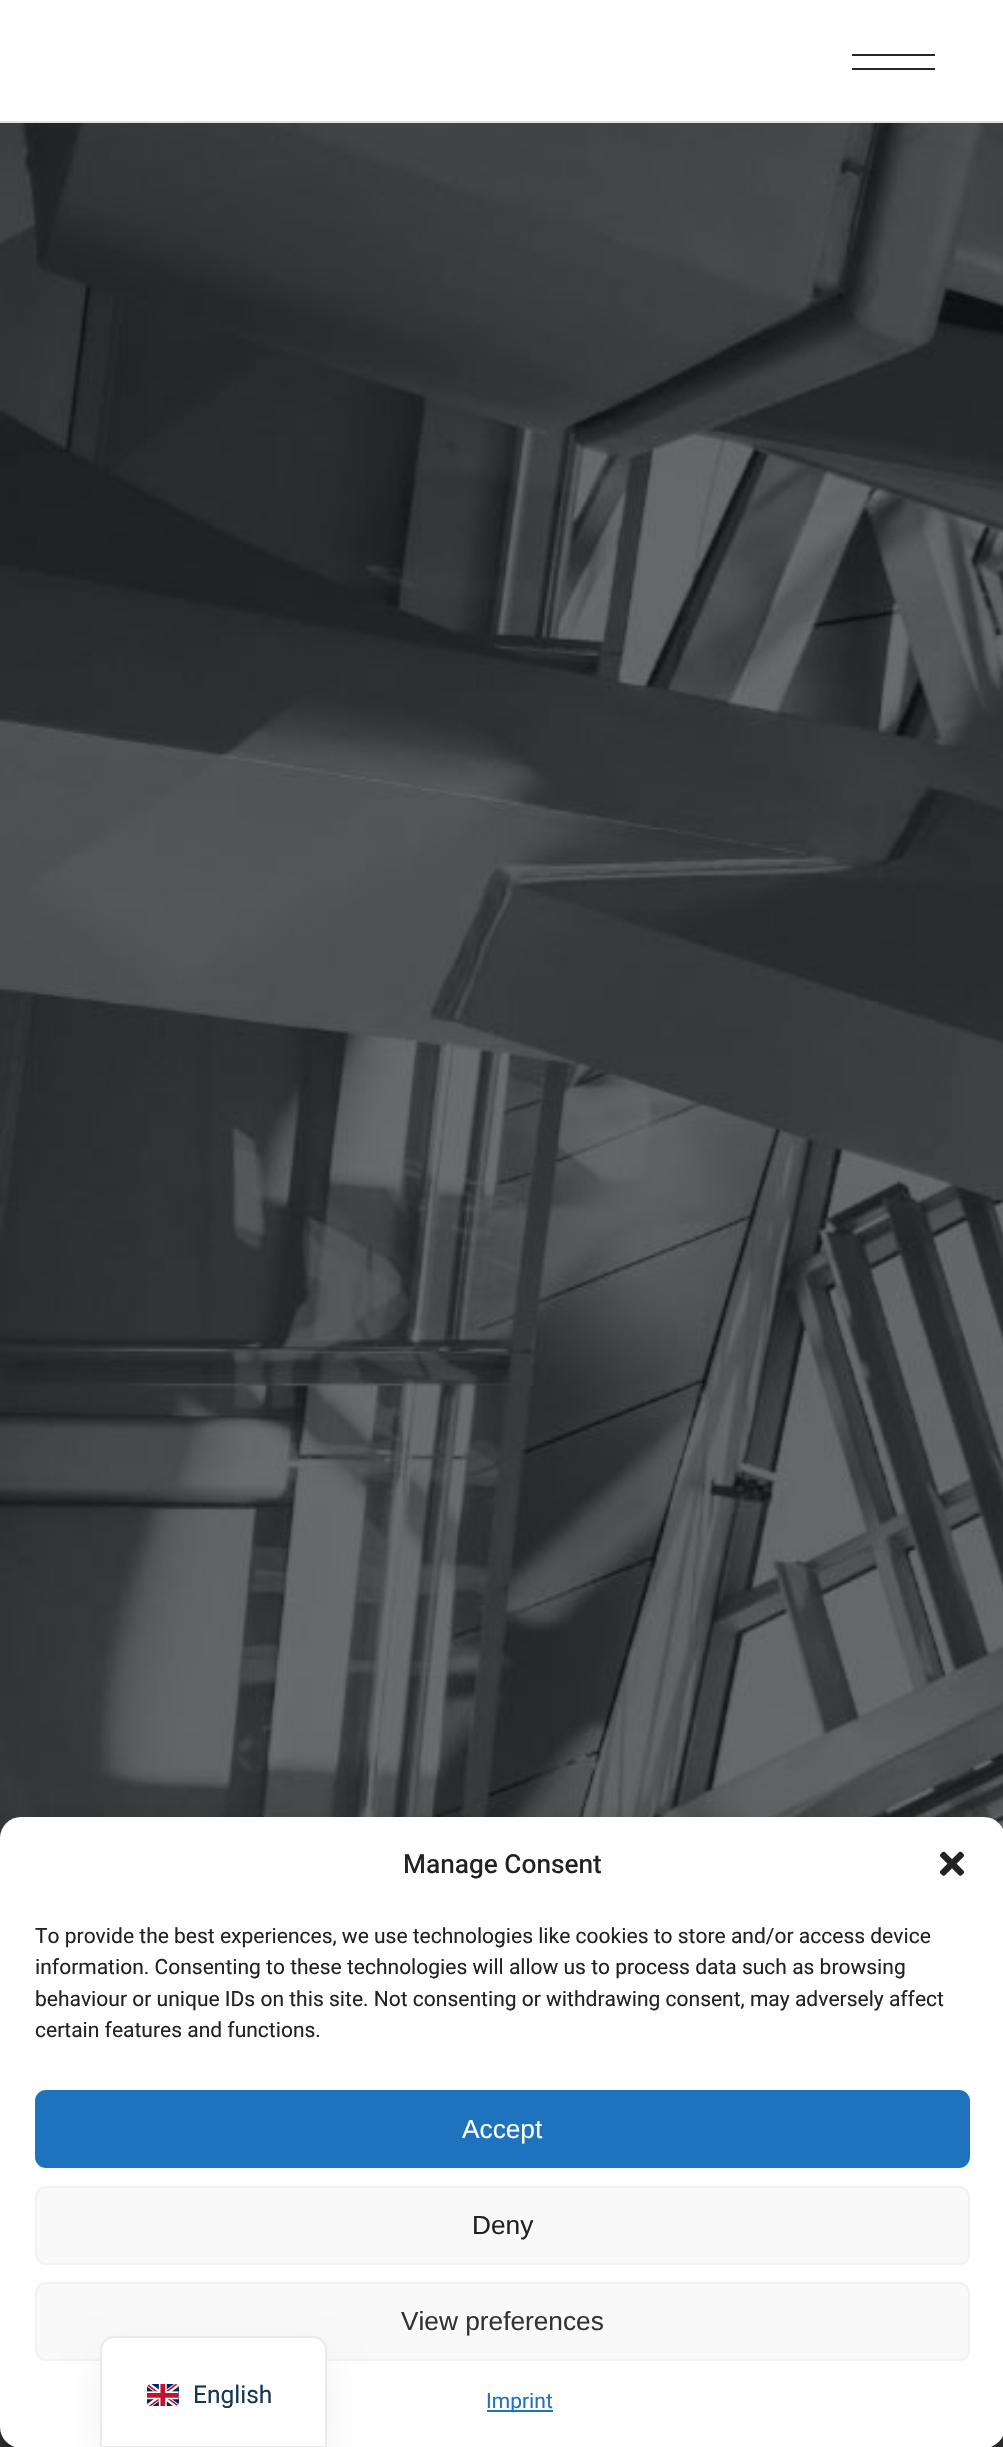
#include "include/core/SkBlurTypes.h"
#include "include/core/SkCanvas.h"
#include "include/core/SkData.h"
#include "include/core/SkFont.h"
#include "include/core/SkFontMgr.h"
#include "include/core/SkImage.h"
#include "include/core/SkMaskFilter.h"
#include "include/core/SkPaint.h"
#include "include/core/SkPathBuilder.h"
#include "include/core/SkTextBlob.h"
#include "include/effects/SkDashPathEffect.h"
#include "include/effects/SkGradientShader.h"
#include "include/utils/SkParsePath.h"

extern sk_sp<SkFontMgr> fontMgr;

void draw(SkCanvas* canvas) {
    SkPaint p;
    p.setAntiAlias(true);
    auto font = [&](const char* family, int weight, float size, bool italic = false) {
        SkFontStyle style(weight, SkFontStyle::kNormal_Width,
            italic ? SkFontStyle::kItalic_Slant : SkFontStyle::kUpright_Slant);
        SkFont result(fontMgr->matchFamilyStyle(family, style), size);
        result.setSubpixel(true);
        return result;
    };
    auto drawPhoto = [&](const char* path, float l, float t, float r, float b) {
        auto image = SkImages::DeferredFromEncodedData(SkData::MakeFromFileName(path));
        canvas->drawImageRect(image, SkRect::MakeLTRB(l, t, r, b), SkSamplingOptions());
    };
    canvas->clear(0xFFFFFFFF);
    {
        const struct { float l, t, r, b; SkColor color; } items[] = {
            {0, 121, 1003, 123, 0xFFE1E1E1},
            {852, 54, 935, 56, 0xFF20282D},
            {852, 68, 935, 70, 0xFF20282D},
        };
        for (auto [l, t, r, b, color] : items) {
            p.setColor(color);
            canvas->drawRect(SkRect::MakeLTRB(l, t, r, b), p);
        }
    }
    drawPhoto("media/1.png", 0, 123, 1003, 2447);
    p.setColor(0x3B000000);
    p.setMaskFilter(SkMaskFilter::MakeBlur(kNormal_SkBlurStyle, 5));
    canvas->drawRoundRect(SkRect::MakeLTRB(0, 1827, 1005, 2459), 21, 21, p);
    p.setMaskFilter(nullptr);
    p.setColor(0x30000000);
    p.setMaskFilter(SkMaskFilter::MakeBlur(kNormal_SkBlurStyle, 17.5f));
    canvas->drawRoundRect(SkRect::MakeLTRB(0, 1834, 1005, 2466), 21, 21, p);
    p.setMaskFilter(nullptr);
    p.setColor(0xFFFFFFFF);
    canvas->drawRoundRect(SkRect::MakeLTRB(0, 1817, 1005, 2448), 21, 21, p);
    auto font1 = font("Heebo", 500, 26.25f);
    p.setColor(0xFF222222);
    canvas->drawString("Manage Consent", 403, 1873, font1, p);
    drawPhoto("media/2.png", 940, 1851, 964, 1876);
    auto font2 = font("Heebo", 400, 21);
    {
        const struct { const char* s; float x, y; } items[] = {
            {"To provide the best experiences, we use technologies like cookies to store and/or access device", 35, 1943},
            {"information. Consenting to these technologies will allow us to process data such as browsing", 35, 1974},
            {"behaviour or unique IDs on this site. Not consenting or withdrawing consent, may adversely affect", 35, 2006},
            {"certain features and functions.", 35, 2037},
        };
        for (auto [s, x, y] : items) {
            canvas->drawString(s, x, y, font2, p);
        }
    }
    p.setColor(0xFF1E73BE);
    canvas->drawRoundRect(SkRect::MakeLTRB(36, 2091, 969, 2167), 10, 10, p);
    p.setStyle(SkPaint::kStroke_Style);
    p.setStrokeWidth(2);
    canvas->drawRoundRect(SkRect::MakeLTRB(36, 2091, 969, 2167), 10, 10, p);
    auto font3 = font("Liberation Sans", 400, 26.25f);
    p.setStyle(SkPaint::kFill_Style);
    p.setColor(0xFFFFFFFF);
    canvas->drawString("Accept", 462, 2138, font3, p);
    p.setColor(0xFFF9F9F9);
    canvas->drawRoundRect(SkRect::MakeLTRB(36, 2187, 969, 2264), 10, 10, p);
    p.setStyle(SkPaint::kStroke_Style);
    p.setColor(0xFFF2F2F2);
    canvas->drawRoundRect(SkRect::MakeLTRB(36, 2187, 969, 2264), 10, 10, p);
    p.setStyle(SkPaint::kFill_Style);
    p.setColor(0xFF222222);
    canvas->drawString("Deny", 472, 2234, font3, p);
    p.setColor(0xFFF9F9F9);
    canvas->drawRoundRect(SkRect::MakeLTRB(36, 2283, 969, 2360), 10, 10, p);
    p.setStyle(SkPaint::kStroke_Style);
    p.setColor(0xFFF2F2F2);
    canvas->drawRoundRect(SkRect::MakeLTRB(36, 2283, 969, 2360), 10, 10, p);
    p.setStyle(SkPaint::kFill_Style);
    p.setColor(0xFF333333);
    canvas->drawString("View preferences", 401, 2330, font3, p);
    p.setColor(0xFF1E73BE);
    canvas->drawRect(SkRect::MakeLTRB(487, 2410, 553, 2412), p);
    canvas->drawString("Imprint", 486, 2408, font2, p);
    p.setColor(0x0D000000);
    p.setMaskFilter(SkMaskFilter::MakeBlur(kNormal_SkBlurStyle, 17.5f));
    canvas->drawRoundRect(SkRect::MakeLTRB(100, 2354, 327, 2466), 14, 14, p);
    p.setMaskFilter(nullptr);
    p.setColor(0xFFFFFFFF);
    canvas->drawPath(SkPathBuilder().moveTo(114, 2336).lineTo(313, 2336).cubicTo(320.5f, 2336, 327, 2342.5f, 327, 2350).lineTo(327, 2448).lineTo(100, 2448).lineTo(100, 2350).cubicTo(100, 2342.5f, 106.5f, 2336, 114, 2336).close().detach(), p);
    p.setStyle(SkPaint::kStroke_Style);
    p.setColor(0x1A143852);
    canvas->drawPath(SkPathBuilder().moveTo(114, 2337).lineTo(313, 2337).cubicTo(320, 2337, 326, 2343, 326, 2350).lineTo(326, 2447).lineTo(101, 2447).lineTo(101, 2350).cubicTo(101, 2343, 107, 2337, 114, 2337).close().detach(), p);
    drawPhoto("media/3.png", 147, 2384, 179, 2406);
    auto font4 = font("Roboto", 400, 24.5f);
    p.setStyle(SkPaint::kFill_Style);
    p.setColor(0xFF143852);
    canvas->drawString("English", 193, 2403, font4, p);
}
